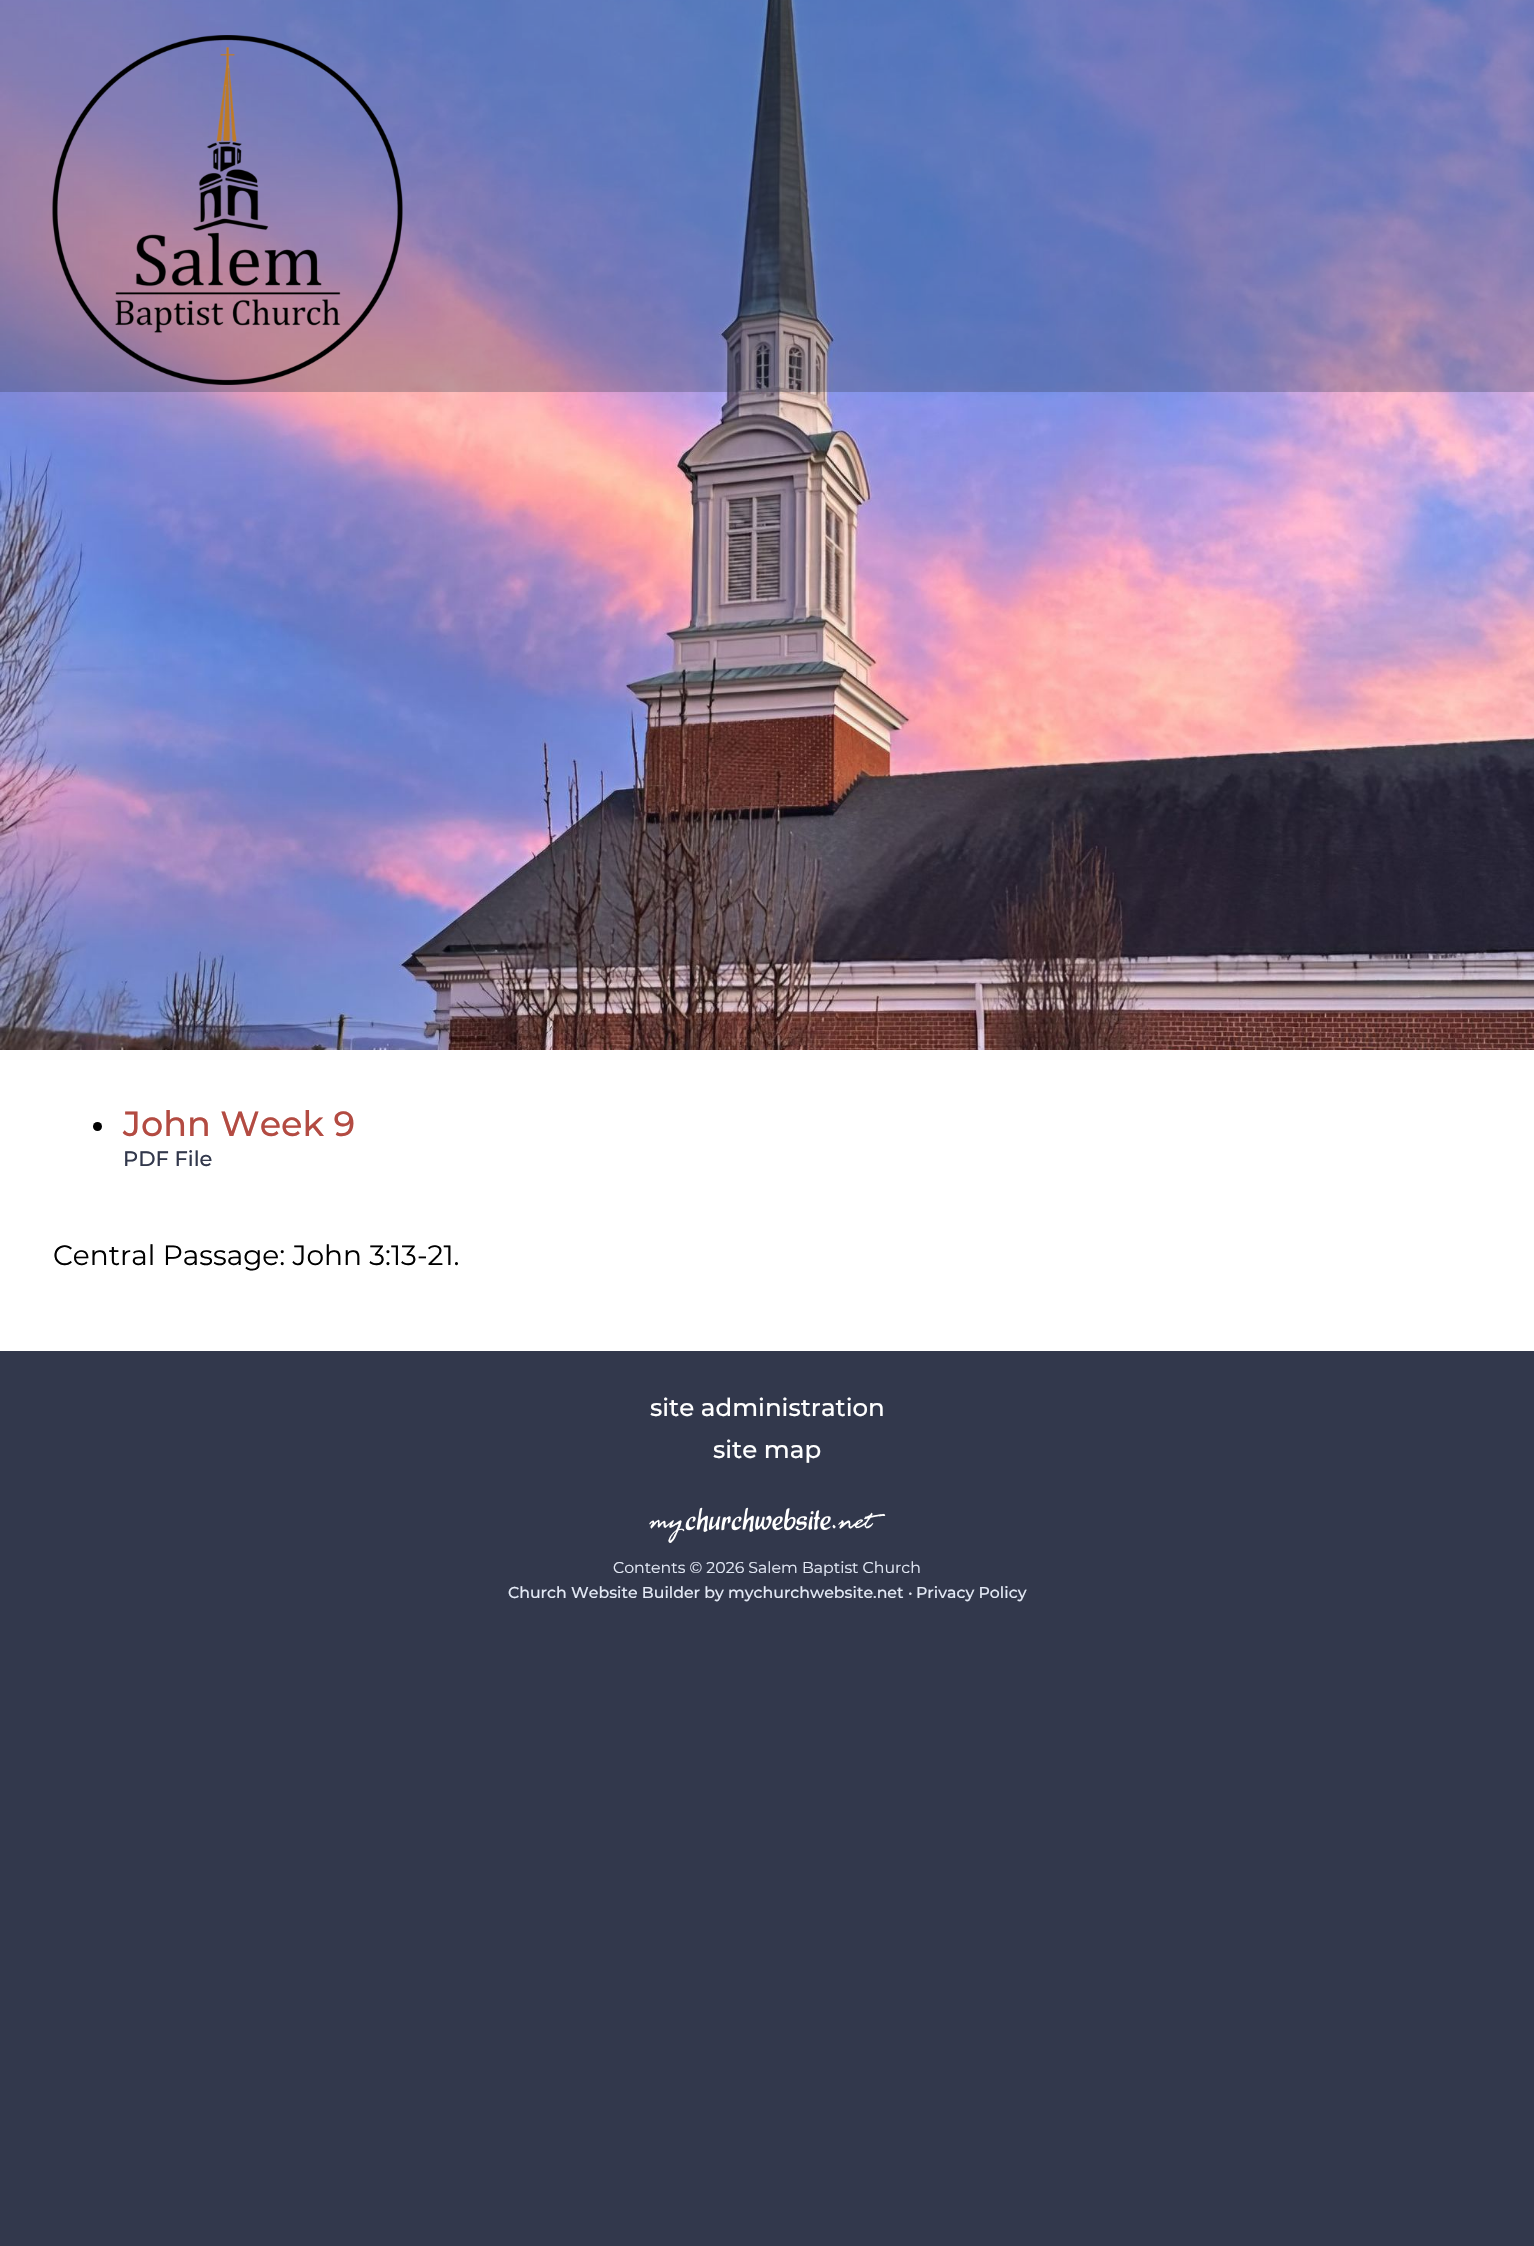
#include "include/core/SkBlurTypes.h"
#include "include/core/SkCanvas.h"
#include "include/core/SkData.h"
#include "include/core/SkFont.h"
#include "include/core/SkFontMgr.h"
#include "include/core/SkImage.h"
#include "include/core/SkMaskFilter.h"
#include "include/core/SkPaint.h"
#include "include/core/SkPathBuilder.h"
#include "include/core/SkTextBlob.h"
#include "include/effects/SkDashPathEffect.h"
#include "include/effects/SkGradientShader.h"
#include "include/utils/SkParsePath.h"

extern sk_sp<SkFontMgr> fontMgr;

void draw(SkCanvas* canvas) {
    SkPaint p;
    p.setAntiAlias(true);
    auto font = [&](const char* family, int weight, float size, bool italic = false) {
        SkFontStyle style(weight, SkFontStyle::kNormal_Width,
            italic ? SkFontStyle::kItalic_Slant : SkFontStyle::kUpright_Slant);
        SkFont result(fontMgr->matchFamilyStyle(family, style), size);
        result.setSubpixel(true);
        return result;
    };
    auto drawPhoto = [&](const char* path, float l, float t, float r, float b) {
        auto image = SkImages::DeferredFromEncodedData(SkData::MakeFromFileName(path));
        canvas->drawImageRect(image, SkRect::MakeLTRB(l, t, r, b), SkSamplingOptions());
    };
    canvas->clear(0xFF32384C);
    drawPhoto("media/1.png", 0, 0, 1534, 1050);
    p.setColor(0x4D32384C);
    canvas->drawRect(SkRect::MakeLTRB(0, 0, 1534, 392), p);
    drawPhoto("media/2.png", 52, 35, 403, 385);
    p.setColor(0xFFFFFFFF);
    canvas->drawRect(SkRect::MakeLTRB(0, 1050, 1534, 1351), p);
    p.setColor(0xFF000000);
    canvas->drawCircle(97.5f, 1126.5f, 4.5f, p);
    auto font1 = font("Montserrat", 500, 35);
    p.setColor(0xFFB34B42);
    canvas->drawString("John Week 9", 123, 1136, font1, p);
    auto font2 = font("Montserrat", 500, 21);
    p.setColor(0xFF32384C);
    canvas->drawString("PDF File", 123, 1166, font2, p);
    auto font3 = font("Montserrat", 400, 28);
    p.setColor(0xFF000000);
    canvas->drawString("Central Passage: John 3:13-21.", 53, 1265, font3, p);
    auto font4 = font("Montserrat", 500, 24.5f);
    p.setColor(0xFFFFFFFF);
    canvas->drawString("site administration", 650, 1416, font4, p);
    canvas->drawString("site map", 713, 1458, font4, p);
    drawPhoto("media/3.png", 649, 1507, 886, 1543);
    auto font5 = font("Montserrat", 400, 15.75f);
    p.setColor(0xFFE3E9F5);
    canvas->drawString("Contents © 2026 Salem Baptist Church", 613, 1573, font5, p);
    auto font6 = font("Montserrat", 500, 15.75f);
    canvas->drawString("Church Website Builder by mychurchwebsite.net", 508, 1598, font6, p);
    canvas->drawString("•", 908, 1598, font5, p);
    canvas->drawString("Privacy Policy", 916, 1598, font6, p);
}
